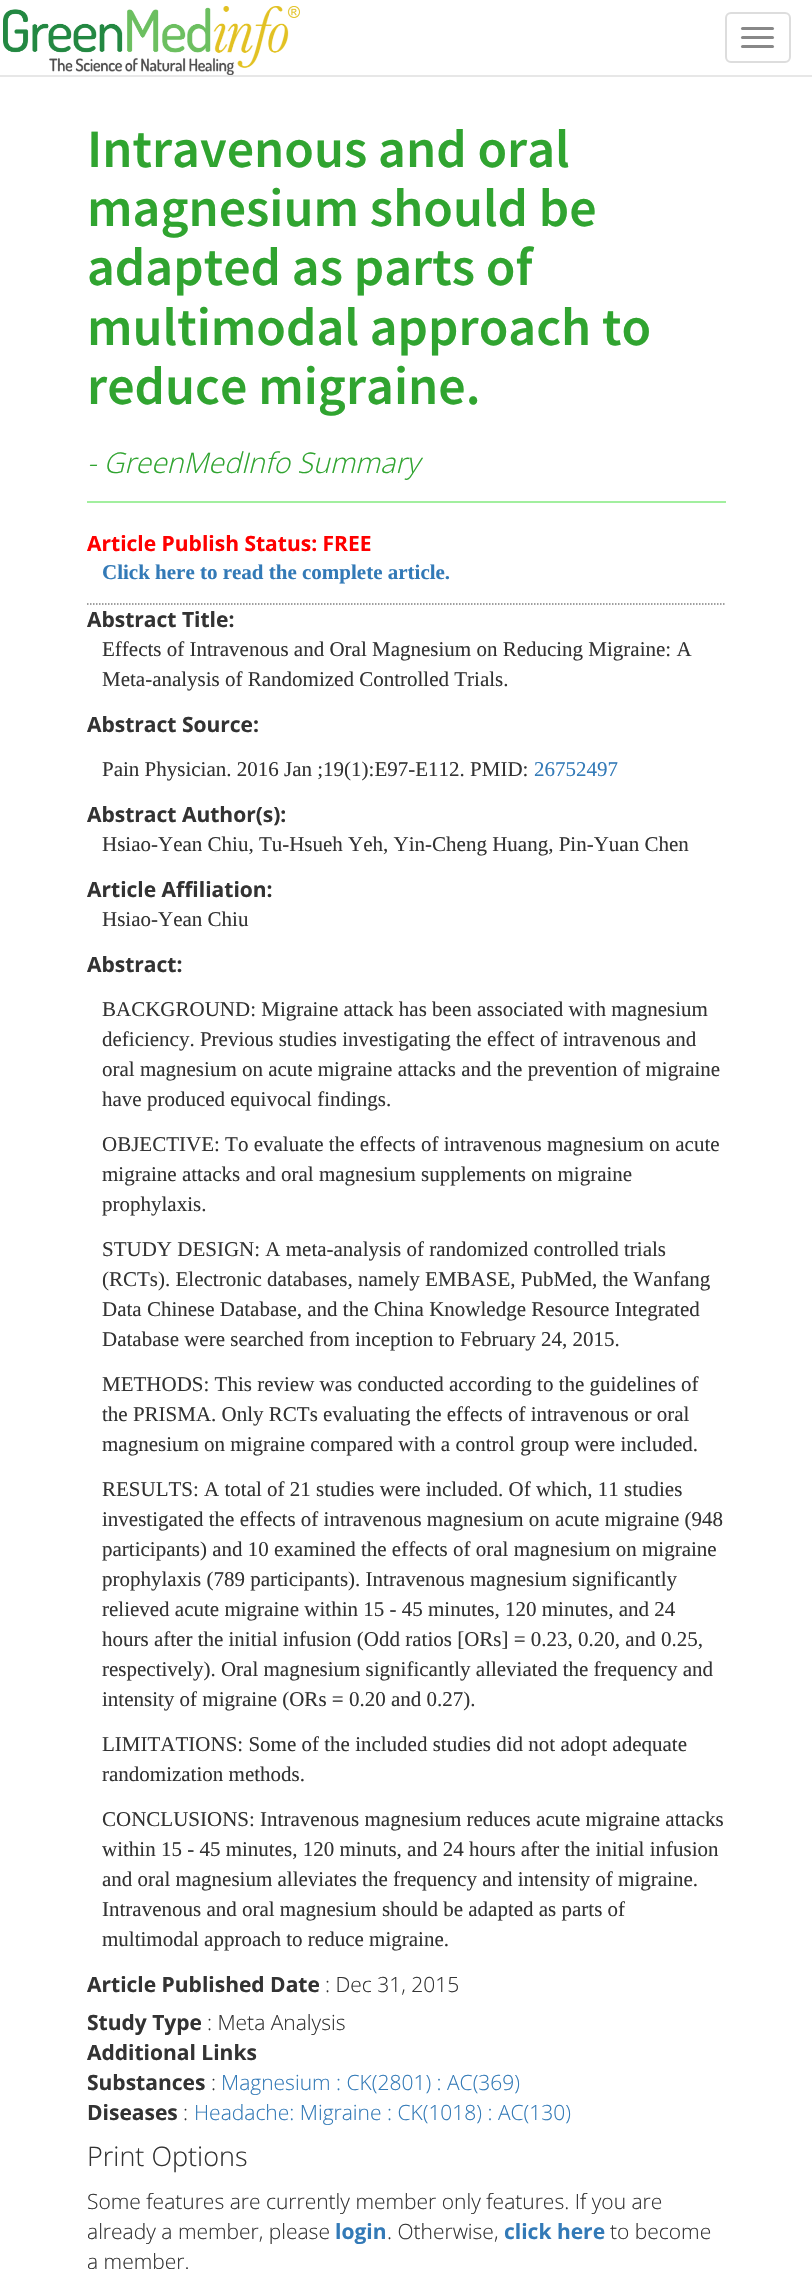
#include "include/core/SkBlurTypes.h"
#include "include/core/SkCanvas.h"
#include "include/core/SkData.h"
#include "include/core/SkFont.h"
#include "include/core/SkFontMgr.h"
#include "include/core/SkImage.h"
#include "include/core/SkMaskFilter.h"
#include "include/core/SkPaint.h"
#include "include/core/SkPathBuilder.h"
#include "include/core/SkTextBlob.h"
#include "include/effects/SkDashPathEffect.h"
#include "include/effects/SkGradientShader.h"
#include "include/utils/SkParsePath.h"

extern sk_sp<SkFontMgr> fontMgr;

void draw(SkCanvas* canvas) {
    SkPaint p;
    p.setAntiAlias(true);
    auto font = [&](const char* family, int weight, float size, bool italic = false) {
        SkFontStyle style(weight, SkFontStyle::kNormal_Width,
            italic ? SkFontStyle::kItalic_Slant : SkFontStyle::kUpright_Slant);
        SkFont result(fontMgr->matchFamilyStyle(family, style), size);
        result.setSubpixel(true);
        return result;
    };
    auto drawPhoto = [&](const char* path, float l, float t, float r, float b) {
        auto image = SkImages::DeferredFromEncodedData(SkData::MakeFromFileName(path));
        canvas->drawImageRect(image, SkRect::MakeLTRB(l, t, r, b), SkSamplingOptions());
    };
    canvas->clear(0xFFFFFFFF);
    p.setColor(0xFFE7E7E7);
    canvas->drawRect(SkRect::MakeLTRB(0, 75, 812, 77), p);
    drawPhoto("media/1.png", 3, 6, 300, 75);
    p.setStyle(SkPaint::kStroke_Style);
    p.setStrokeWidth(2);
    p.setColor(0xFFDDDDDD);
    canvas->drawRoundRect(SkRect::MakeLTRB(726, 13, 790, 62), 5, 5, p);
    p.setStyle(SkPaint::kFill_Style);
    p.setColor(0xFF888888);
    canvas->drawRoundRect(SkRect::MakeLTRB(741, 27, 774, 30), 1.5f, 1.5f, p);
    canvas->drawRoundRect(SkRect::MakeLTRB(741, 36, 774, 39), 1.5f, 1.5f, p);
    canvas->drawRoundRect(SkRect::MakeLTRB(741, 45, 774, 48), 1.5f, 1.5f, p);
    p.setColor(0xFFA2EF9F);
    canvas->drawRect(SkRect::MakeLTRB(87, 501, 726, 503), p);
    auto font1 = font("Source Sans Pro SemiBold", 600, 54);
    p.setColor(0xFF30A430);
    {
        const struct { const char* s; float x, y; } items[] = {
            {"Intravenous and oral", 87, 167},
            {"magnesium should be", 87, 226},
            {"adapted as parts of", 87, 285},
            {"multimodal approach to", 87, 345},
            {"reduce migraine.", 87, 404},
        };
        for (auto [s, x, y] : items) {
            canvas->drawString(s, x, y, font1, p);
        }
    }
    auto font2 = font("Open Sans", 300, 28.5f, true);
    canvas->drawString("- GreenMedInfo Summary", 87, 473, font2, p);
    p.setStyle(SkPaint::kStroke_Style);
    p.setStrokeWidth(1.5f);
    p.setColor(0xFF808080);
    p.setPathEffect(SkDashPathEffect::Make({{1.5f, 1.5f}}, 0));
    canvas->drawPath(SkPathBuilder().moveTo(87, 604).lineTo(726, 604).detach(), p);
    p.setPathEffect(nullptr);
    auto font3 = font("Open Sans", 700, 21);
    p.setStyle(SkPaint::kFill_Style);
    p.setColor(0xFFFF0000);
    canvas->drawString("Article Publish Status: FREE", 87, 551, font3, p);
    auto font4 = font("Liberation Serif", 700, 21);
    p.setColor(0xFF337AB7);
    canvas->drawString("Click here to read the complete article.", 102, 579, font4, p);
    p.setColor(0xFF333333);
    canvas->drawString("Abstract Title:", 87, 627, font3, p);
    auto font5 = font("Liberation Serif", 400, 21);
    canvas->drawString("Effects of Intravenous and Oral Magnesium on Reducing Migraine: A", 102, 656, font5, p);
    canvas->drawString("Meta-analysis of Randomized Controlled Trials.", 102, 686, font5, p);
    canvas->drawString("Abstract Source:", 87, 732, font3, p);
    canvas->drawString("Pain Physician. 2016 Jan ;19(1):E97-E112. PMID:", 102, 776, font5, p);
    p.setColor(0xFF337AB7);
    canvas->drawString("26752497", 534, 776, font5, p);
    p.setColor(0xFF333333);
    canvas->drawString("Abstract Author(s):", 87, 822, font3, p);
    canvas->drawString("Hsiao-Yean Chiu, Tu-Hsueh Yeh, Yin-Cheng Huang, Pin-Yuan Chen", 102, 851, font5, p);
    canvas->drawString("Article Affiliation:", 87, 897, font3, p);
    canvas->drawString("Hsiao-Yean Chiu", 102, 926, font5, p);
    canvas->drawString("Abstract:", 87, 972, font3, p);
    {
        const struct { const char* s; float x, y; } items[] = {
            {"BACKGROUND: Migraine attack has been associated with magnesium", 102, 1016},
            {"deficiency. Previous studies investigating the effect of intravenous and", 102, 1046},
            {"oral magnesium on acute migraine attacks and the prevention of migraine", 102, 1076},
            {"have produced equivocal findings.", 102, 1106},
            {"OBJECTIVE: To evaluate the effects of intravenous magnesium on acute", 102, 1151},
            {"migraine attacks and oral magnesium supplements on migraine", 102, 1181},
            {"prophylaxis.", 102, 1211},
            {"STUDY DESIGN: A meta-analysis of randomized controlled trials", 102, 1256},
            {"(RCTs). Electronic databases, namely EMBASE, PubMed, the Wanfang", 102, 1286},
            {"Data Chinese Database, and the China Knowledge Resource Integrated", 102, 1316},
            {"Database were searched from inception to February 24, 2015.", 102, 1346},
            {"METHODS: This review was conducted according to the guidelines of", 102, 1391},
            {"the PRISMA. Only RCTs evaluating the effects of intravenous or oral", 102, 1421},
            {"magnesium on migraine compared with a control group were included.", 102, 1451},
            {"RESULTS: A total of 21 studies were included. Of which, 11 studies", 102, 1496},
            {"investigated the effects of intravenous magnesium on acute migraine (948", 102, 1526},
            {"participants) and 10 examined the effects of oral magnesium on migraine", 102, 1556},
            {"prophylaxis (789 participants). Intravenous magnesium significantly", 102, 1586},
            {"relieved acute migraine within 15 - 45 minutes, 120 minutes, and 24", 102, 1616},
            {"hours after the initial infusion (Odd ratios [ORs] = 0.23, 0.20, and 0.25,", 102, 1646},
            {"respectively). Oral magnesium significantly alleviated the frequency and", 102, 1676},
            {"intensity of migraine (ORs = 0.20 and 0.27).", 102, 1706},
            {"LIMITATIONS: Some of the included studies did not adopt adequate", 102, 1751},
            {"randomization methods.", 102, 1781},
            {"CONCLUSIONS: Intravenous magnesium reduces acute migraine attacks", 102, 1826},
            {"within 15 - 45 minutes, 120 minuts, and 24 hours after the initial infusion", 102, 1856},
            {"and oral magnesium alleviates the frequency and intensity of migraine.", 102, 1886},
            {"Intravenous and oral magnesium should be adapted as parts of", 102, 1916},
            {"multimodal approach to reduce migraine.", 102, 1946},
        };
        for (auto [s, x, y] : items) {
            canvas->drawString(s, x, y, font5, p);
        }
    }
    canvas->drawString("Article Published Date", 87, 1992, font3, p);
    auto font6 = font("Open Sans", 300, 21);
    canvas->drawString(": Dec 31, 2015", 325, 1992, font6, p);
    canvas->drawString("Study Type", 87, 2030, font3, p);
    canvas->drawString(": Meta Analysis", 207, 2030, font6, p);
    canvas->drawString("Additional Links", 87, 2060, font3, p);
    canvas->drawString("Substances", 87, 2090, font3, p);
    canvas->drawString(":", 211, 2090, font6, p);
    p.setColor(0xFF337AB7);
    canvas->drawString("Magnesium : CK(2801) : AC(369)", 221, 2090, font6, p);
    p.setColor(0xFF333333);
    canvas->drawString("Diseases", 87, 2120, font3, p);
    canvas->drawString(":", 183, 2120, font6, p);
    p.setColor(0xFF337AB7);
    canvas->drawString("Headache: Migraine : CK(1018) : AC(130)", 194, 2120, font6, p);
    auto font7 = font("Open Sans", 300, 27);
    p.setColor(0xFF333333);
    canvas->drawString("Print Options", 87, 2166, font7, p);
    canvas->drawString("Some features are currently member only features. If you are", 87, 2209, font6, p);
    canvas->drawString("already a member, please", 87, 2239, font6, p);
    p.setColor(0xFF337AB7);
    canvas->drawString("login", 335, 2239, font3, p);
    p.setColor(0xFF333333);
    canvas->drawString(". Otherwise,", 387, 2239, font6, p);
    p.setColor(0xFF337AB7);
    canvas->drawString("click here", 504, 2239, font3, p);
    p.setColor(0xFF333333);
    canvas->drawString("to become", 610, 2239, font6, p);
    canvas->drawString("a member.", 87, 2269, font6, p);
}
